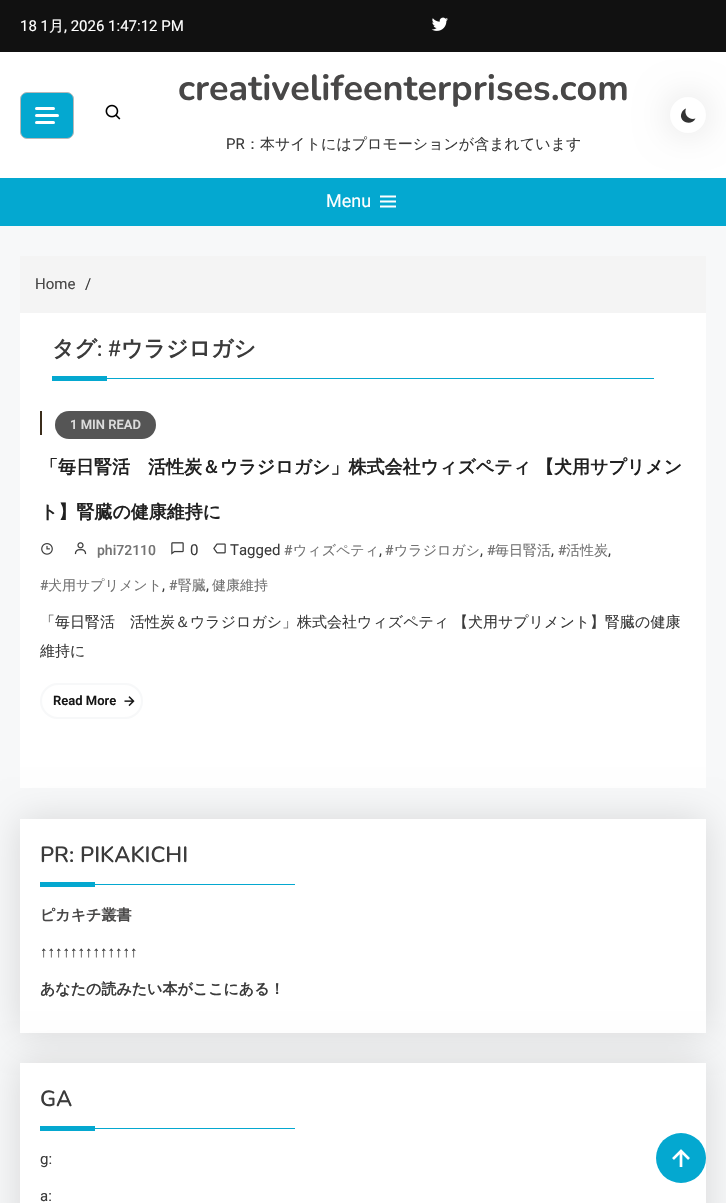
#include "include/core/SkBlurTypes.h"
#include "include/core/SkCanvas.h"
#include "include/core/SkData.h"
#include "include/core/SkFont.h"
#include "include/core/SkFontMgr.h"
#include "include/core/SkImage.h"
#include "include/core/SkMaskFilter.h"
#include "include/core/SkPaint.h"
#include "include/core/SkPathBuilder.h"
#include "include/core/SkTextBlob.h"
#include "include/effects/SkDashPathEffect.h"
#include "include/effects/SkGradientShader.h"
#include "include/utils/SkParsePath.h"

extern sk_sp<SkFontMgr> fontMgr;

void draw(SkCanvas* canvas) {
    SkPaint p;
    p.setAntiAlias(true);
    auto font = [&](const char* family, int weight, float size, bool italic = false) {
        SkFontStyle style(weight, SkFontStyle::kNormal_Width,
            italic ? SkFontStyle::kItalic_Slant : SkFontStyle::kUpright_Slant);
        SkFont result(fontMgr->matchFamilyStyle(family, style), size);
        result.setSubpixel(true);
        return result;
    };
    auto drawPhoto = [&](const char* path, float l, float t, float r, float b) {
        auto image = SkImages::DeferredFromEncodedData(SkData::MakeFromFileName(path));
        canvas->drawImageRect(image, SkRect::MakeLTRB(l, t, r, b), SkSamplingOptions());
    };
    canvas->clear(0xFFF7F8F9);
    p.setColor(0xFF111111);
    canvas->drawRect(SkRect::MakeLTRB(0, 0, 726, 52), p);
    auto font1 = font("Roboto", 400, 15);
    p.setColor(0xFFFFFFFF);
    canvas->drawString("18 1", 20, 31, font1, p);
    auto font2 = font("WenQuanYi Zen Hei", 500, 15);
    canvas->drawString("月", 49, 31, font2, p);
    canvas->drawString(", 2026 1:47:12 PM", 64, 31, font1, p);
    drawPhoto("media/1.png", 431, 17, 448, 31);
    canvas->drawRect(SkRect::MakeLTRB(0, 52, 726, 178), p);
    p.setColor(0xFF04A8D0);
    canvas->drawRoundRect(SkRect::MakeLTRB(20.5f, 92.5f, 73.5f, 138.5f), 6.5f, 6.5f, p);
    p.setStyle(SkPaint::kStroke_Style);
    p.setStrokeWidth(1);
    p.setColor(0xFFB9B8B8);
    canvas->drawRoundRect(SkRect::MakeLTRB(20.5f, 92.5f, 73.5f, 138.5f), 6.5f, 6.5f, p);
    p.setStyle(SkPaint::kFill_Style);
    p.setColor(0xFFFFFFFF);
    canvas->drawRoundRect(SkRect::MakeLTRB(35, 107, 55, 110), 1.5f, 1.5f, p);
    canvas->drawRoundRect(SkRect::MakeLTRB(35, 114, 59, 117), 1.5f, 1.5f, p);
    canvas->drawRoundRect(SkRect::MakeLTRB(35, 121, 55, 124), 1.5f, 1.5f, p);
    drawPhoto("media/2.png", 105, 104, 121, 120);
    auto font3 = font("Nunito", 700, 36);
    p.setColor(0xFF484747);
    canvas->drawString("creativelifeenterprises.com", 178, 100, font3, p);
    p.setColor(0xFF3B3B3B);
    canvas->drawString("PR", 226, 149, font1, p);
    canvas->drawString("：本サイトにはプロモーションが含まれています", 245, 149, font2, p);
    p.setColor(0x21000000);
    p.setMaskFilter(SkMaskFilter::MakeBlur(kNormal_SkBlurStyle, 17.5f));
    canvas->drawRoundRect(SkRect::MakeLTRB(670, 97, 706, 133), 18, 18, p);
    p.setMaskFilter(nullptr);
    p.setColor(0xFFFFFFFF);
    canvas->drawCircle(688, 115, 18, p);
    p.setColor(0xFF333333);
    canvas->drawPath(SkPathBuilder().moveTo(695.5f, 118.5f).cubicTo(689, 120.5f, 683.5f, 114.5f, 686, 108.5f).cubicTo(684.5f, 109, 682.5f, 110.5f, 682, 112).cubicTo(677, 121, 691, 127.5f, 695.5f, 118.5f).close().detach(), p);
    p.setColor(0xFF04A8D0);
    canvas->drawRect(SkRect::MakeLTRB(0, 178, 726, 226), p);
    auto font4 = font("Roboto", 400, 18);
    p.setColor(0xFFFFFFFF);
    canvas->drawString("Menu", 326, 207, font4, p);
    drawPhoto("media/3.png", 380, 195, 396, 208);
    p.setColor(0xFFF4F4F4);
    canvas->drawRect(SkRect::MakeLTRB(20, 256, 706, 313), p);
    p.setColor(0xFF484747);
    canvas->drawString("Home", 35, 289, font1, p);
    p.setColor(0xFF3B3B3B);
    canvas->drawString("/", 85, 289, font1, p);
    p.setColor(0xFFFFFFFF);
    canvas->drawRect(SkRect::MakeLTRB(20, 313, 706, 788), p);
    auto font5 = font("WenQuanYi Zen Hei", 700, 22);
    p.setColor(0xFF3B3B3B);
    canvas->drawString("タグ", 52, 356, font5, p);
    auto font6 = font("Nunito", 600, 22);
    canvas->drawString(": #", 97, 356, font6, p);
    canvas->drawString("ウラジロガシ", 121, 356, font5, p);
    p.setColor(0xFF04A8D0);
    canvas->drawRect(SkRect::MakeLTRB(52, 376, 107, 381), p);
    canvas->drawRect(SkRect::MakeLTRB(107, 378, 654, 379), p);
    p.setColor(0xCC2B2B2B);
    canvas->drawRoundRect(SkRect::MakeLTRB(55, 411, 156, 439), 14, 14, p);
    auto font7 = font("Roboto", 600, 13);
    p.setColor(0xFFDCDCDC);
    canvas->drawString("1 MIN READ", 70, 429, font7, p);
    p.setColor(0xFF3B2D1B);
    canvas->drawRect(SkRect::MakeLTRB(40, 411, 42, 435), p);
    auto font8 = font("WenQuanYi Zen Hei", 700, 18);
    p.setColor(0xFF212121);
    {
        const struct { const char* s; float x, y; } items[] = {
            {"「毎日腎活　活性炭＆ウラジロガシ」株式会社ウィズペティ", 40, 473},
            {"【犬用サプリメン", 536, 473},
            {"ト】腎臓の健康維持に", 40, 518},
        };
        for (auto [s, x, y] : items) {
            canvas->drawString(s, x, y, font8, p);
        }
    }
    drawPhoto("media/4.png", 171, 542, 184, 555);
    drawPhoto("media/5.png", 213, 543, 226, 554);
    p.setColor(0xFF3B3B3B);
    canvas->drawString("Tagged", 230, 555, font1, p);
    auto font9 = font("Roboto", 500, 14);
    p.setColor(0xFF737373);
    canvas->drawString("#", 284, 555, font9, p);
    auto font10 = font("WenQuanYi Zen Hei", 500, 14);
    canvas->drawString("ウィズペティ", 293, 555, font10, p);
    p.setColor(0xFF3B3B3B);
    canvas->drawString(",", 379, 555, font1, p);
    p.setColor(0xFF737373);
    canvas->drawString("#", 385, 555, font9, p);
    canvas->drawString("ウラジロガシ", 394, 555, font10, p);
    p.setColor(0xFF3B3B3B);
    canvas->drawString(",", 480, 555, font1, p);
    p.setColor(0xFF737373);
    canvas->drawString("#", 487, 555, font9, p);
    canvas->drawString("毎日腎活", 495, 555, font10, p);
    p.setColor(0xFF3B3B3B);
    canvas->drawString(",", 551, 555, font1, p);
    p.setColor(0xFF737373);
    canvas->drawString("#", 558, 555, font9, p);
    canvas->drawString("活性炭", 566, 555, font10, p);
    p.setColor(0xFF3B3B3B);
    canvas->drawString(",", 608, 555, font1, p);
    p.setColor(0xFF737373);
    canvas->drawString("#", 40, 590, font9, p);
    canvas->drawString("犬用サプリメント", 48, 590, font10, p);
    p.setColor(0xFF3B3B3B);
    canvas->drawString(",", 162, 590, font1, p);
    p.setColor(0xFF737373);
    canvas->drawString("#", 169, 590, font9, p);
    canvas->drawString("腎臓", 178, 590, font10, p);
    p.setColor(0xFF3B3B3B);
    canvas->drawString(",", 206, 590, font1, p);
    p.setColor(0xFF737373);
    canvas->drawString("健康維持", 212, 590, font10, p);
    drawPhoto("media/6.png", 41, 543, 53, 555);
    drawPhoto("media/7.png", 74, 542, 87, 555);
    canvas->drawString("phi72110", 97, 555, font9, p);
    p.setColor(0xFF3B3B3B);
    canvas->drawString("0", 190, 555, font1, p);
    {
        const struct { const char* s; float x, y; } items[] = {
            {"「毎日腎活　活性炭＆ウラジロガシ」株式会社ウィズペティ", 40, 627},
            {"【犬用サプリメント】腎臓の健康", 453, 627},
            {"維持に", 40, 656},
        };
        for (auto [s, x, y] : items) {
            canvas->drawString(s, x, y, font2, p);
        }
    }
    p.setStyle(SkPaint::kStroke_Style);
    p.setStrokeWidth(2);
    p.setColor(0xFFF7F8F9);
    canvas->drawRoundRect(SkRect::MakeLTRB(41, 684, 142, 718), 17, 17, p);
    p.setStyle(SkPaint::kFill_Style);
    p.setColor(0xFF151515);
    canvas->drawString("Read More", 53, 705, font7, p);
    drawPhoto("media/8.png", 124, 696, 135, 707);
    p.setColor(0x21000000);
    p.setMaskFilter(SkMaskFilter::MakeBlur(kNormal_SkBlurStyle, 17.5f));
    canvas->drawRect(SkRect::MakeLTRB(20, 819, 706, 1033), p);
    p.setMaskFilter(nullptr);
    p.setColor(0xFFFFFFFF);
    canvas->drawRect(SkRect::MakeLTRB(20, 819, 706, 1033), p);
    p.setColor(0xFF3B3B3B);
    canvas->drawString("PR: PIKAKICHI", 40, 862, font6, p);
    p.setColor(0xFF04A8D0);
    canvas->drawRect(SkRect::MakeLTRB(40, 882, 95, 887), p);
    canvas->drawRect(SkRect::MakeLTRB(95, 884, 295, 885), p);
    auto font11 = font("WenQuanYi Zen Hei", 700, 15);
    p.setColor(0xFF484747);
    canvas->drawString("ピカキチ叢書", 40, 920, font11, p);
    auto font12 = font("Liberation Serif", 700, 15);
    p.setColor(0xFF3B3B3B);
    canvas->drawString("↑↑↑↑↑↑↑↑↑↑↑↑↑", 40, 957, font12, p);
    canvas->drawString("あなたの読みたい本がここにある！", 40, 994, font11, p);
    p.setColor(0x21000000);
    p.setMaskFilter(SkMaskFilter::MakeBlur(kNormal_SkBlurStyle, 17.5f));
    canvas->drawRect(SkRect::MakeLTRB(20, 1063, 706, 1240), p);
    p.setMaskFilter(nullptr);
    p.setColor(0xFFFFFFFF);
    canvas->drawRect(SkRect::MakeLTRB(20, 1063, 706, 1203), p);
    p.setColor(0xFF3B3B3B);
    canvas->drawString("GA", 40, 1106, font6, p);
    p.setColor(0xFF04A8D0);
    canvas->drawRect(SkRect::MakeLTRB(40, 1126, 95, 1131), p);
    canvas->drawRect(SkRect::MakeLTRB(95, 1128, 295, 1129), p);
    p.setColor(0xFF3B3B3B);
    canvas->drawString("g:", 40, 1164, font1, p);
    canvas->drawString("a:", 40, 1201, font1, p);
    p.setColor(0xFF04A8D0);
    canvas->drawCircle(681, 1158, 25, p);
    drawPhoto("media/9.png", 672, 1149, 690, 1167);
}
